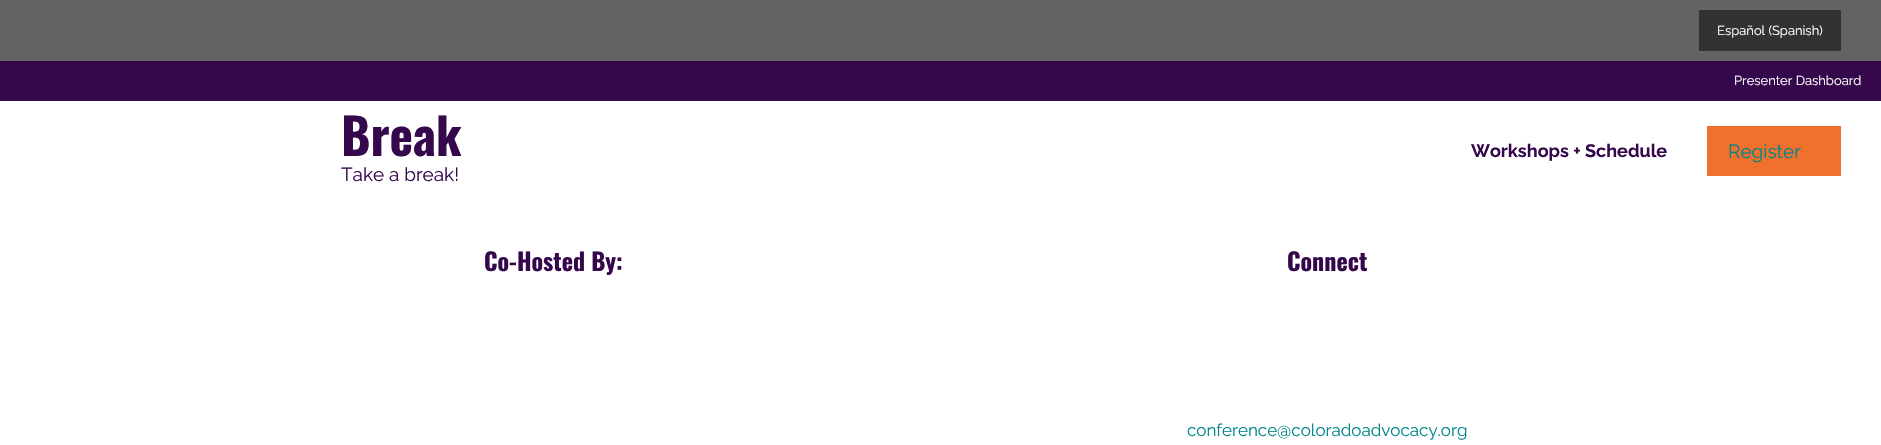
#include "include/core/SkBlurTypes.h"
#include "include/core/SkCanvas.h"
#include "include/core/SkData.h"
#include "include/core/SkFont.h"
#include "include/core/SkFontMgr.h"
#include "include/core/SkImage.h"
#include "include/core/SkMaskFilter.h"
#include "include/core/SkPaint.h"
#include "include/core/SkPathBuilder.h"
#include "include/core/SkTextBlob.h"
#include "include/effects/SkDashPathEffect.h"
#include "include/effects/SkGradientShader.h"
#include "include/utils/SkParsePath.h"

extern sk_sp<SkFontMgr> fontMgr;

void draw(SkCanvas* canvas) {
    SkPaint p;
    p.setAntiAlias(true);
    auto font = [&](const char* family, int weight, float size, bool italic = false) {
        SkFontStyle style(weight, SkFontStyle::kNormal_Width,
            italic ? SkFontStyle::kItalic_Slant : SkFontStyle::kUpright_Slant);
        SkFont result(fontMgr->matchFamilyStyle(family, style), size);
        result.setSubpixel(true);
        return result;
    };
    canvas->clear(0xFFFFFFFF);
    auto font1 = font("Oswald", 700, 50);
    p.setColor(0xFF35084C);
    canvas->drawString("Break", 341, 156, font1, p);
    auto font2 = font("Raleway", 400, 19);
    canvas->drawString("Take a break!", 341, 181, font2, p);
    p.setColor(0xFF636363);
    canvas->drawRect(SkRect::MakeLTRB(0, 0, 1881, 61), p);
    p.setColor(0xFF323232);
    canvas->drawRect(SkRect::MakeLTRB(1699, 10, 1841, 51), p);
    auto font3 = font("Raleway", 400, 13);
    p.setColor(0xFFFFFFFF);
    canvas->drawString("Español (Spanish)", 1717, 35, font3, p);
    p.setColor(0xFF35084C);
    canvas->drawRect(SkRect::MakeLTRB(0, 61, 1881, 101), p);
    p.setColor(0xFFFFFFFF);
    canvas->drawString("Presenter Dashboard", 1734, 85, font3, p);
    auto font4 = font("Raleway", 700, 18);
    p.setColor(0xFF35084C);
    canvas->drawString("Workshops + Schedule", 1471, 157, font4, p);
    p.setColor(0xFFF0702E);
    canvas->drawRect(SkRect::MakeLTRB(1707, 126, 1841, 176), p);
    p.setColor(0xFF00858A);
    canvas->drawString("Register", 1728, 158, font2, p);
    auto font5 = font("Oswald", 700, 24);
    p.setColor(0xFF35084C);
    canvas->drawString("Co-Hosted By:", 484, 271, font5, p);
    canvas->drawString("Connect", 1287, 271, font5, p);
    auto font6 = font("Raleway", 400, 17);
    p.setColor(0xFF00858A);
    canvas->drawString("conference@coloradoadvocacy.org", 1187, 436, font6, p);
}
